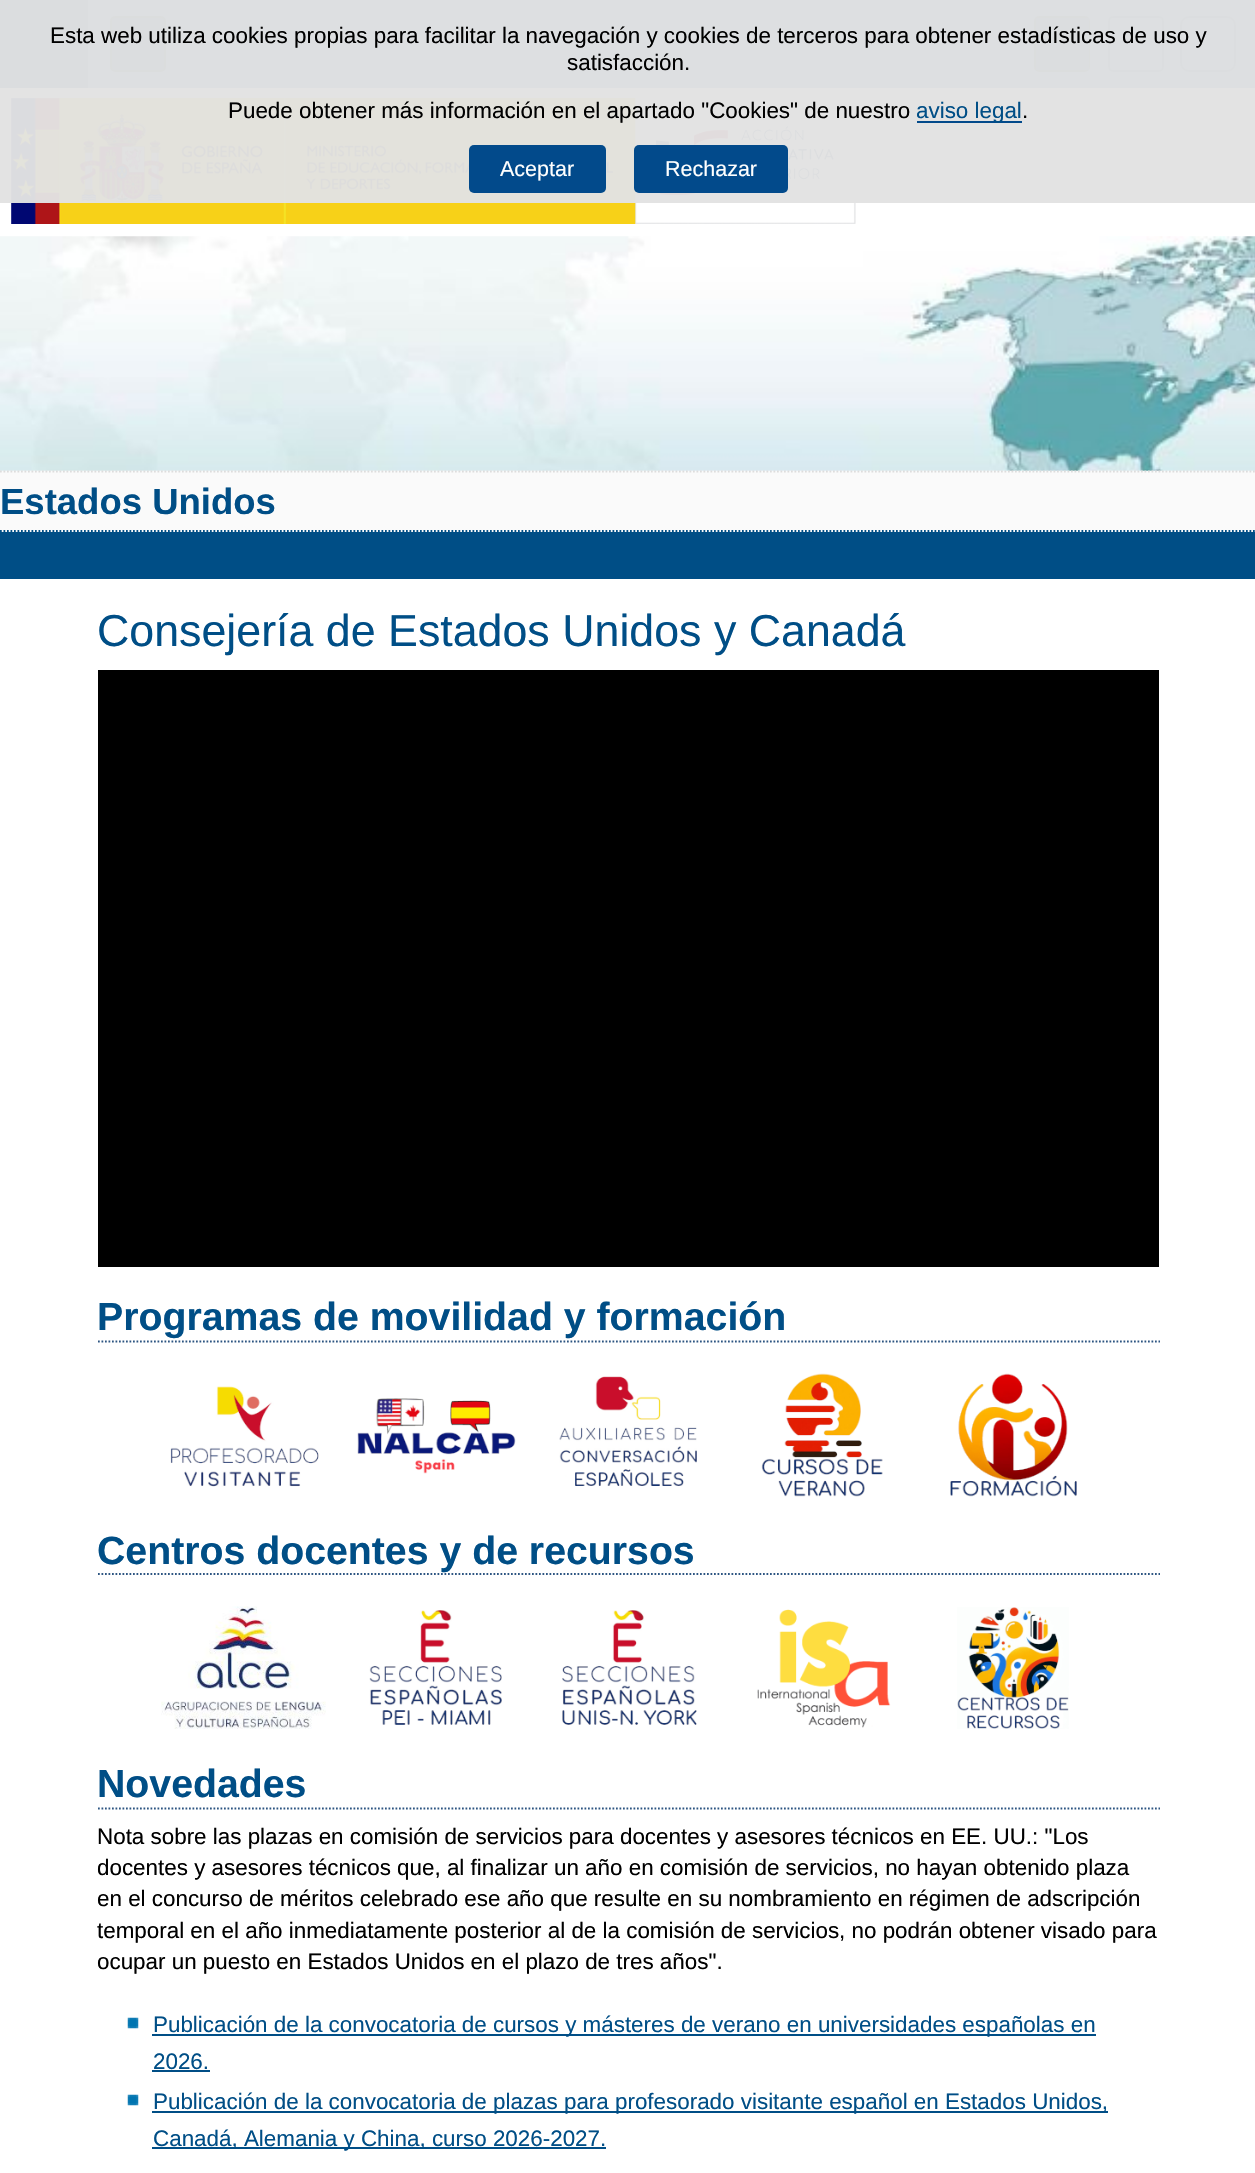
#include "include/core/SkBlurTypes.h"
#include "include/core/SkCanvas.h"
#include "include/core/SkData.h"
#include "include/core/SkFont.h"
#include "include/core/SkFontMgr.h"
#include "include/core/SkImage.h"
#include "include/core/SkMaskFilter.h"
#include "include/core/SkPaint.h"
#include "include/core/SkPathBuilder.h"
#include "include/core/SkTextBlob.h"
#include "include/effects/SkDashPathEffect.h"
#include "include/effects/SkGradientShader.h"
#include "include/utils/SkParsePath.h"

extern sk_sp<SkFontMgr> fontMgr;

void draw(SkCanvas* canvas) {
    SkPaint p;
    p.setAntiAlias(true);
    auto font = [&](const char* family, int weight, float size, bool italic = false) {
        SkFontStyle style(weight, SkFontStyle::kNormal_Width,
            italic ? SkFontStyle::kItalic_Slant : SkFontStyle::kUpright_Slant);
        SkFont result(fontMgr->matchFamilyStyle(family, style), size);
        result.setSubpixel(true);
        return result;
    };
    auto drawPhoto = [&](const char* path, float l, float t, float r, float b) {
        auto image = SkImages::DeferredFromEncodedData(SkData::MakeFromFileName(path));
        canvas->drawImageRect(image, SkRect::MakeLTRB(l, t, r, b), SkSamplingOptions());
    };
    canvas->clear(0xFF004E86);
    p.setColor(0xFF277BBA);
    canvas->drawRect(SkRect::MakeLTRB(88, 0, 1255, 88), p);
    p.setColor(0xFF003F6D);
    canvas->drawRect(SkRect::MakeLTRB(0, 0, 88, 88), p);
    canvas->drawRoundRect(SkRect::MakeLTRB(111, 17, 165, 71), 4, 4, p);
    p.setStyle(SkPaint::kStroke_Style);
    p.setStrokeWidth(2);
    p.setColor(0xFF00243E);
    canvas->drawRoundRect(SkRect::MakeLTRB(111, 17, 165, 71), 4, 4, p);
    canvas->drawRoundRect(SkRect::MakeLTRB(1035, 17, 1089, 71), 4, 4, p);
    p.setStyle(SkPaint::kFill_Style);
    p.setColor(0xFF003F6D);
    canvas->drawRect(SkRect::MakeLTRB(1036, 18, 1089, 70), p);
    p.setStyle(SkPaint::kStroke_Style);
    canvas->drawRoundRect(SkRect::MakeLTRB(1109, 17, 1163, 71), 4, 4, p);
    canvas->drawRoundRect(SkRect::MakeLTRB(1181, 17, 1235, 71), 8, 8, p);
    p.setStyle(SkPaint::kFill_Style);
    p.setColor(0xFFFFFFFF);
    canvas->drawRect(SkRect::MakeLTRB(0, 88, 1255, 471), p);
    drawPhoto("media/1.png", 11, 98, 856, 224);
    p.setColor(0xF7E2E2E2);
    canvas->drawRect(SkRect::MakeLTRB(0, 0, 1255, 203), p);
    auto font1 = font("Liberation Sans", 400, 22.4f);
    p.setColor(0xFF000000);
    {
        const struct { const char* s; float x, y; } items[] = {
            {"Esta web utiliza cookies propias para facilitar la navegación y cookies de terceros para obtener estadísticas de uso y", 50, 43},
            {"satisfacción.", 567, 70},
            {"Puede obtener más información en el apartado \"Cookies\" de nuestro", 228, 118},
        };
        for (auto [s, x, y] : items) {
            canvas->drawString(s, x, y, font1, p);
        }
    }
    p.setColor(0xFF024A8B);
    canvas->drawRect(SkRect::MakeLTRB(917, 121, 1022, 123), p);
    p.setColor(0xFF004E86);
    canvas->drawString("aviso legal", 916, 118, font1, p);
    p.setColor(0xFF000000);
    canvas->drawString(".", 1022, 118, font1, p);
    p.setColor(0xFF024A8B);
    canvas->drawRoundRect(SkRect::MakeLTRB(469, 145, 606, 193), 5, 5, p);
    auto font2 = font("Liberation Sans", 400, 21.5f);
    p.setColor(0xFFFFFFFF);
    canvas->drawString("Aceptar", 500, 176, font2, p);
    p.setColor(0xFF024A8B);
    canvas->drawRoundRect(SkRect::MakeLTRB(634, 145, 788, 193), 5, 5, p);
    p.setColor(0xFFFFFFFF);
    canvas->drawString("Rechazar", 665, 176, font2, p);
    drawPhoto("media/2.png", 0, 236, 1255, 471);
    p.setColor(0xFFFAFAFA);
    canvas->drawRect(SkRect::MakeLTRB(0, 471, 1255, 532), p);
    p.setStyle(SkPaint::kStroke_Style);
    p.setStrokeWidth(1.8f);
    p.setColor(0xFFDDDDDD);
    p.setPathEffect(SkDashPathEffect::Make({{1.75f, 1.75f}}, 0));
    canvas->drawPath(SkPathBuilder().moveTo(0, 471.5f).lineTo(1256.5f, 471.5f).detach(), p);
    p.setPathEffect(nullptr);
    p.setColor(0xFF004E86);
    p.setPathEffect(SkDashPathEffect::Make({{1.75f, 1.75f}}, 0));
    canvas->drawPath(SkPathBuilder().moveTo(0, 531).lineTo(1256.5f, 531).detach(), p);
    p.setPathEffect(nullptr);
    auto font3 = font("Liberation Sans", 700, 36.5f);
    p.setStyle(SkPaint::kFill_Style);
    canvas->drawString("Estados Unidos", 0, 514, font3, p);
    p.setColor(0xFFFFFFFF);
    canvas->drawRect(SkRect::MakeLTRB(0, 579, 1255, 2173), p);
    auto font4 = font("Liberation Sans", 400, 44.75f);
    p.setColor(0xFF004E86);
    canvas->drawString("Consejería de Estados Unidos y Canadá", 97, 646, font4, p);
    p.setColor(0xFF000000);
    canvas->drawRect(SkRect::MakeLTRB(98, 670, 1159, 1267), p);
    p.setStyle(SkPaint::kStroke_Style);
    p.setColor(0xFF2D5582);
    p.setPathEffect(SkDashPathEffect::Make({{1.75f, 1.75f}}, 0));
    canvas->drawPath(SkPathBuilder().moveTo(98, 1341.5f).lineTo(1160, 1341.5f).detach(), p);
    p.setPathEffect(nullptr);
    auto font5 = font("Liberation Sans", 700, 39.25f);
    p.setStyle(SkPaint::kFill_Style);
    p.setColor(0xFF004E86);
    canvas->drawString("Programas de movilidad y formación", 97, 1330, font5, p);
    drawPhoto("media/3.png", 170, 1386, 319, 1487);
    drawPhoto("media/4.png", 357, 1398, 516, 1474);
    drawPhoto("media/5.png", 559, 1376, 697, 1486);
    drawPhoto("media/6.png", 761, 1373, 883, 1497);
    drawPhoto("media/7.png", 950, 1373, 1077, 1497);
    p.setStyle(SkPaint::kStroke_Style);
    p.setColor(0xFF2D5582);
    p.setPathEffect(SkDashPathEffect::Make({{1.75f, 1.75f}}, 0));
    canvas->drawPath(SkPathBuilder().moveTo(98, 1574).lineTo(1160, 1574).detach(), p);
    p.setPathEffect(nullptr);
    p.setStyle(SkPaint::kFill_Style);
    p.setColor(0xFF004E86);
    canvas->drawString("Centros docentes y de recursos", 97, 1564, font5, p);
    drawPhoto("media/8.png", 161, 1606, 326, 1729);
    drawPhoto("media/9.png", 369, 1610, 502, 1725);
    drawPhoto("media/10.png", 562, 1610, 697, 1725);
    drawPhoto("media/11.png", 757, 1609, 891, 1728);
    drawPhoto("media/12.png", 957, 1607, 1069, 1729);
    p.setStyle(SkPaint::kStroke_Style);
    p.setColor(0xFF2D5582);
    p.setPathEffect(SkDashPathEffect::Make({{1.75f, 1.75f}}, 0));
    canvas->drawPath(SkPathBuilder().moveTo(98, 1808.5f).lineTo(1160, 1808.5f).detach(), p);
    p.setPathEffect(nullptr);
    p.setStyle(SkPaint::kFill_Style);
    p.setColor(0xFF004E86);
    canvas->drawString("Novedades", 97, 1797, font5, p);
    p.setColor(0xFF000000);
    {
        const struct { const char* s; float x, y; } items[] = {
            {"Nota sobre las plazas en comisión de servicios para docentes y asesores técnicos en EE. UU.: \"Los", 97, 1844},
            {"docentes y asesores técnicos que, al finalizar un año en comisión de servicios, no hayan obtenido plaza", 97, 1875},
            {"en el concurso de méritos celebrado ese año que resulte en su nombramiento en régimen de adscripción", 97, 1906},
            {"temporal en el año inmediatamente posterior al de la comisión de servicios, no podrán obtener visado para", 97, 1938},
            {"ocupar un puesto en Estados Unidos en el plazo de tres años\".", 97, 1969},
        };
        for (auto [s, x, y] : items) {
            canvas->drawString(s, x, y, font1, p);
        }
    }
    drawPhoto("media/13.png", 127, 2017, 139, 2029);
    p.setColor(0xFF004E86);
    canvas->drawRect(SkRect::MakeLTRB(152, 2034, 1096, 2036), p);
    canvas->drawString("Publicación de la convocatoria de cursos y másteres de verano en universidades españolas en", 153, 2032, font1, p);
    canvas->drawString("2026.", 153, 2069, font1, p);
    canvas->drawRect(SkRect::MakeLTRB(152, 2070, 210, 2072), p);
    drawPhoto("media/13.png", 127, 2094, 139, 2106);
    canvas->drawRect(SkRect::MakeLTRB(152, 2111, 1108, 2113), p);
    canvas->drawString("Publicación de la convocatoria de plazas para profesorado visitante español en Estados Unidos,", 153, 2109, font1, p);
    canvas->drawRect(SkRect::MakeLTRB(152, 2147, 606, 2149), p);
    canvas->drawString("Canadá, Alemania y China, curso 2026-2027.", 153, 2146, font1, p);
}
